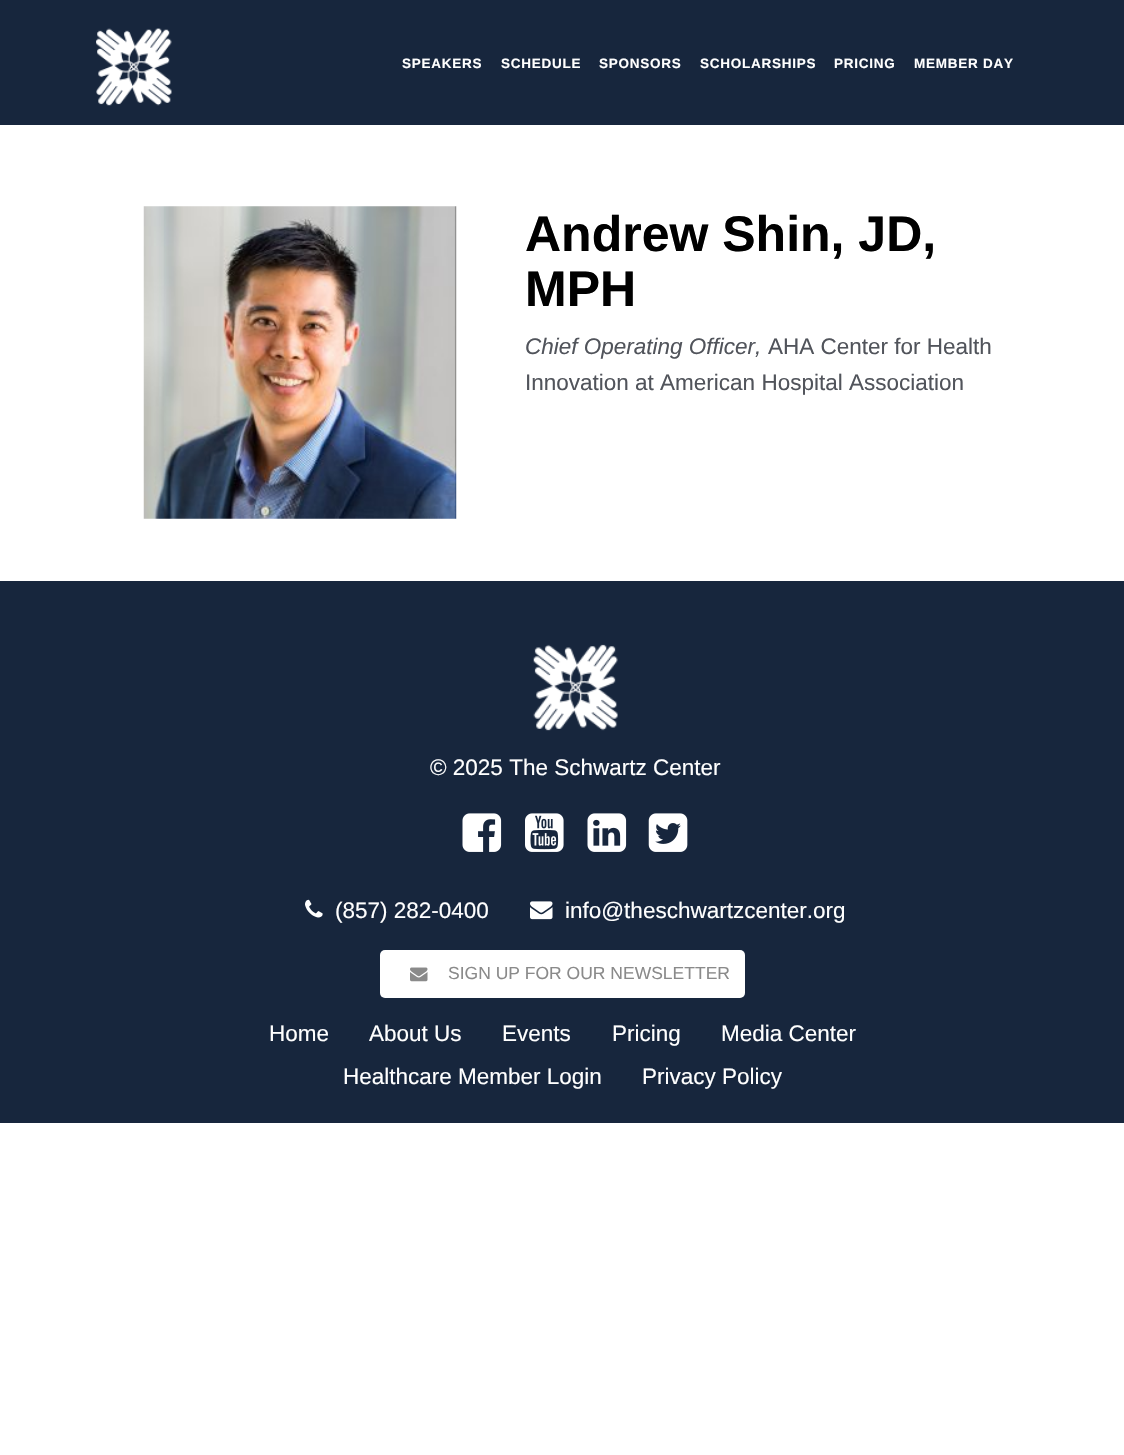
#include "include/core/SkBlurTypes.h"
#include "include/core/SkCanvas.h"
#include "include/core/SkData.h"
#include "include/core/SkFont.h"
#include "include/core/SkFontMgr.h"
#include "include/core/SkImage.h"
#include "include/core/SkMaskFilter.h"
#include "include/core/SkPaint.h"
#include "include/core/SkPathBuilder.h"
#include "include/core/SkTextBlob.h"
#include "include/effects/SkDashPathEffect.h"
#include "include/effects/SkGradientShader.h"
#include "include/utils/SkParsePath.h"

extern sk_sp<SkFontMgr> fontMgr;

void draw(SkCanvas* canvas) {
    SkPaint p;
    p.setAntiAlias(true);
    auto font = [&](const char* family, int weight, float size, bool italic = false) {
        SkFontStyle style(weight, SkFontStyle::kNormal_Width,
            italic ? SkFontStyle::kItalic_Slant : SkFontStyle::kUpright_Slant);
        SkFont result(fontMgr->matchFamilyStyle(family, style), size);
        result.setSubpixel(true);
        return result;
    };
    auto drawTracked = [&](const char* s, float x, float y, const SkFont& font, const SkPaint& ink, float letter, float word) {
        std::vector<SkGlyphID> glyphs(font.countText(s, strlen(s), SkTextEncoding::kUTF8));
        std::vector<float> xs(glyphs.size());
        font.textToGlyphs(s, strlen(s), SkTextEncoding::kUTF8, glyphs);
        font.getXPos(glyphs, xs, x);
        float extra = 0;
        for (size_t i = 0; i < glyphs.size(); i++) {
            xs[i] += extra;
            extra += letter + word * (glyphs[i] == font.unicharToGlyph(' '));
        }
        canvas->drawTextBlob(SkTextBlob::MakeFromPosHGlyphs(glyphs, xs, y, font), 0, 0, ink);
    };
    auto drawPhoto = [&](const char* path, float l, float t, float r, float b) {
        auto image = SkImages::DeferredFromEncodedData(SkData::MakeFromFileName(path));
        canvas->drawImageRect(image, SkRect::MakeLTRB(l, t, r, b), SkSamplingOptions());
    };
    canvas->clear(0xFFFFFFFF);
    p.setColor(0xFF17263D);
    canvas->drawRect(SkRect::MakeLTRB(0, 0, 1124, 125), p);
    drawPhoto("media/1.png", 96, 28, 172, 106);
    auto font1 = font("Liberation Sans", 700, 13.5f);
    p.setColor(0xFFFFFFFF);
    {
        const struct { const char* s; float x, y; } items[] = {
            {"SPEAKERS", 402, 68},
            {"SCHEDULE", 501, 68},
            {"SPONSORS", 599, 68},
            {"SCHOLARSHIPS", 700, 68},
            {"PRICING", 834, 68},
            {"MEMBER DAY", 914, 68},
        };
        for (auto [s, x, y] : items) {
            drawTracked(s, x, y, font1, p, 0.75f, 0);
        }
    }
    drawPhoto("media/2.png", 143, 206, 457, 519);
    auto font2 = font("Liberation Sans", 700, 50);
    p.setColor(0xFF000000);
    canvas->drawString("Andrew Shin, JD,", 525, 251, font2, p);
    canvas->drawString("MPH", 525, 306, font2, p);
    auto font3 = font("Liberation Sans", 400, 22.5f, true);
    p.setColor(0xFF51545B);
    canvas->drawString("Chief Operating Officer,", 525, 354, font3, p);
    auto font4 = font("Liberation Sans", 400, 22.5f);
    canvas->drawString("AHA Center for Health", 768, 354, font4, p);
    canvas->drawString("Innovation at American Hospital Association", 525, 390, font4, p);
    p.setColor(0xFF17263D);
    canvas->drawRect(SkRect::MakeLTRB(0, 581, 1124, 1123), p);
    drawPhoto("media/3.png", 533, 644, 618, 731);
    p.setColor(0xFFFFFFFF);
    canvas->drawString("© 2025 The Schwartz Center", 430, 775, font4, p);
    drawPhoto("media/4.png", 462, 813, 502, 852);
    drawPhoto("media/5.png", 525, 813, 564, 852);
    drawPhoto("media/6.png", 587, 813, 627, 852);
    drawPhoto("media/7.png", 648, 813, 688, 852);
    drawPhoto("media/8.png", 305, 899, 323, 918);
    canvas->drawString("(857) 282-0400", 335, 918, font4, p);
    drawPhoto("media/9.png", 530, 901, 553, 920);
    canvas->drawString("info@theschwartzcenter.org", 565, 918, font4, p);
    canvas->drawRoundRect(SkRect::MakeLTRB(380, 950, 745, 998), 5, 5, p);
    drawPhoto("media/10.png", 410, 967, 428, 982);
    auto font5 = font("Liberation Sans", 400, 17.5f);
    p.setColor(0xFF8A8A8A);
    canvas->drawString("SIGN UP FOR OUR NEWSLETTER", 448, 979, font5, p);
    p.setColor(0xFFFFFFFF);
    {
        const struct { const char* s; float x, y; } items[] = {
            {"Home", 269, 1041},
            {"About Us", 369, 1041},
            {"Events", 502, 1041},
            {"Pricing", 612, 1041},
            {"Media Center", 721, 1041},
            {"Healthcare Member Login", 343, 1084},
            {"Privacy Policy", 642, 1084},
        };
        for (auto [s, x, y] : items) {
            canvas->drawString(s, x, y, font4, p);
        }
    }
}
